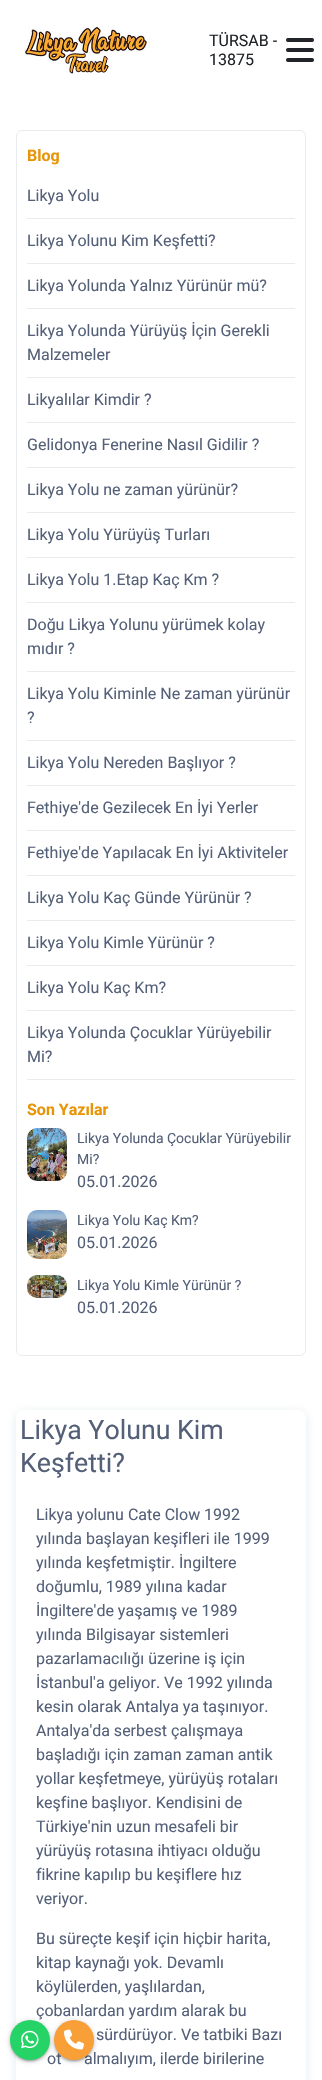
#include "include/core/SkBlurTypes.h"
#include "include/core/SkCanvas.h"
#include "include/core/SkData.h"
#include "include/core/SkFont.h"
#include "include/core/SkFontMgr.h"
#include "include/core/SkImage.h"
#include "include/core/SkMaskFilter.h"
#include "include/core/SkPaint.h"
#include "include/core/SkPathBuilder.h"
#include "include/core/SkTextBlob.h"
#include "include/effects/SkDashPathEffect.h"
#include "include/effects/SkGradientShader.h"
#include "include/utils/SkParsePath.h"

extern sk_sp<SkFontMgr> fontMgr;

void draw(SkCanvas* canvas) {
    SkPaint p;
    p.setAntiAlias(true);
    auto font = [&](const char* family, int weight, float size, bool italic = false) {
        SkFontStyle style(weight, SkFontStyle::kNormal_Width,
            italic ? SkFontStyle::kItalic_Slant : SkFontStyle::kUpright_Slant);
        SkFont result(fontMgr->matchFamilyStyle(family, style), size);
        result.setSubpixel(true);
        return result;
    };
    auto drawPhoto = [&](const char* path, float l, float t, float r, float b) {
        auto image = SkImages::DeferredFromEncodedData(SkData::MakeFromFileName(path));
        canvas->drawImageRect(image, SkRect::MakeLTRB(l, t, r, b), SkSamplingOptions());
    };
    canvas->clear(0xFFFFFFFF);
    drawPhoto("media/1.png", 24, 26, 150, 75);
    auto font1 = font("Roboto", 400, 16);
    p.setColor(0xFF212529);
    canvas->drawString("TÜRSAB -", 209, 46, font1, p);
    drawPhoto("media/2.png", 286, 38, 314, 62);
    canvas->drawString("13875", 209, 65, font1, p);
    p.setStyle(SkPaint::kStroke_Style);
    p.setStrokeWidth(1);
    p.setColor(0xFFE9ECEF);
    canvas->drawRoundRect(SkRect::MakeLTRB(16.5f, 130.5f, 305.5f, 1355.5f), 5.5f, 5.5f, p);
    auto font2 = font("Roboto", 700, 16);
    p.setStyle(SkPaint::kFill_Style);
    p.setColor(0xFFE79406);
    canvas->drawString("Blog", 27, 161, font2, p);
    p.setColor(0xFFE9ECEF);
    canvas->drawRect(SkRect::MakeLTRB(27, 218, 295, 219), p);
    p.setColor(0xFF546078);
    canvas->drawString("Likya Yolu", 27, 201, font1, p);
    p.setColor(0xFFE9ECEF);
    canvas->drawRect(SkRect::MakeLTRB(27, 263, 295, 264), p);
    p.setColor(0xFF546078);
    canvas->drawString("Likya Yolunu Kim Keşfetti?", 27, 246, font1, p);
    p.setColor(0xFFE9ECEF);
    canvas->drawRect(SkRect::MakeLTRB(27, 308, 295, 309), p);
    p.setColor(0xFF546078);
    canvas->drawString("Likya Yolunda Yalnız Yürünür mü?", 27, 291, font1, p);
    p.setColor(0xFFE9ECEF);
    canvas->drawRect(SkRect::MakeLTRB(27, 377, 295, 378), p);
    p.setColor(0xFF546078);
    canvas->drawString("Likya Yolunda Yürüyüş İçin Gerekli", 27, 336, font1, p);
    canvas->drawString("Malzemeler", 27, 360, font1, p);
    p.setColor(0xFFE9ECEF);
    canvas->drawRect(SkRect::MakeLTRB(27, 422, 295, 423), p);
    p.setColor(0xFF546078);
    canvas->drawString("Likyalılar Kimdir ?", 27, 405, font1, p);
    p.setColor(0xFFE9ECEF);
    canvas->drawRect(SkRect::MakeLTRB(27, 467, 295, 468), p);
    p.setColor(0xFF546078);
    canvas->drawString("Gelidonya Fenerine Nasıl Gidilir ?", 27, 450, font1, p);
    p.setColor(0xFFE9ECEF);
    canvas->drawRect(SkRect::MakeLTRB(27, 512, 295, 513), p);
    p.setColor(0xFF546078);
    canvas->drawString("Likya Yolu ne zaman yürünür?", 27, 495, font1, p);
    p.setColor(0xFFE9ECEF);
    canvas->drawRect(SkRect::MakeLTRB(27, 557, 295, 558), p);
    p.setColor(0xFF546078);
    canvas->drawString("Likya Yolu Yürüyüş Turları", 27, 540, font1, p);
    p.setColor(0xFFE9ECEF);
    canvas->drawRect(SkRect::MakeLTRB(27, 602, 295, 603), p);
    p.setColor(0xFF546078);
    canvas->drawString("Likya Yolu 1.Etap Kaç Km ?", 27, 585, font1, p);
    p.setColor(0xFFE9ECEF);
    canvas->drawRect(SkRect::MakeLTRB(27, 671, 295, 672), p);
    p.setColor(0xFF546078);
    canvas->drawString("Doğu Likya Yolunu yürümek kolay", 27, 630, font1, p);
    canvas->drawString("mıdır ?", 27, 654, font1, p);
    p.setColor(0xFFE9ECEF);
    canvas->drawRect(SkRect::MakeLTRB(27, 740, 295, 741), p);
    p.setColor(0xFF546078);
    canvas->drawString("Likya Yolu Kiminle Ne zaman yürünür", 27, 699, font1, p);
    canvas->drawString("?", 27, 723, font1, p);
    p.setColor(0xFFE9ECEF);
    canvas->drawRect(SkRect::MakeLTRB(27, 785, 295, 786), p);
    p.setColor(0xFF546078);
    canvas->drawString("Likya Yolu Nereden Başlıyor ?", 27, 768, font1, p);
    p.setColor(0xFFE9ECEF);
    canvas->drawRect(SkRect::MakeLTRB(27, 830, 295, 831), p);
    p.setColor(0xFF546078);
    canvas->drawString("Fethiye'de Gezilecek En İyi Yerler", 27, 813, font1, p);
    p.setColor(0xFFE9ECEF);
    canvas->drawRect(SkRect::MakeLTRB(27, 875, 295, 876), p);
    p.setColor(0xFF546078);
    canvas->drawString("Fethiye'de Yapılacak En İyi Aktiviteler", 27, 858, font1, p);
    p.setColor(0xFFE9ECEF);
    canvas->drawRect(SkRect::MakeLTRB(27, 920, 295, 921), p);
    p.setColor(0xFF546078);
    canvas->drawString("Likya Yolu Kaç Günde Yürünür ?", 27, 903, font1, p);
    p.setColor(0xFFE9ECEF);
    canvas->drawRect(SkRect::MakeLTRB(27, 965, 295, 966), p);
    p.setColor(0xFF546078);
    canvas->drawString("Likya Yolu Kimle Yürünür ?", 27, 948, font1, p);
    p.setColor(0xFFE9ECEF);
    canvas->drawRect(SkRect::MakeLTRB(27, 1010, 295, 1011), p);
    p.setColor(0xFF546078);
    canvas->drawString("Likya Yolu Kaç Km?", 27, 993, font1, p);
    p.setColor(0xFFE9ECEF);
    canvas->drawRect(SkRect::MakeLTRB(27, 1079, 295, 1080), p);
    p.setColor(0xFF546078);
    canvas->drawString("Likya Yolunda Çocuklar Yürüyebilir", 27, 1038, font1, p);
    canvas->drawString("Mi?", 27, 1062, font1, p);
    p.setColor(0xFFE79406);
    canvas->drawString("Son Yazılar", 27, 1115, font2, p);
    drawPhoto("media/3.png", 27, 1128, 67, 1181);
    auto font3 = font("Roboto", 400, 14);
    p.setColor(0xFF546078);
    canvas->drawString("Likya Yolunda Çocuklar Yürüyebilir", 77, 1143, font3, p);
    canvas->drawString("Mi?", 77, 1164, font3, p);
    canvas->drawString("05.01.2026", 77, 1187, font1, p);
    drawPhoto("media/4.png", 27, 1210, 67, 1259);
    canvas->drawString("Likya Yolu Kaç Km?", 77, 1225, font3, p);
    canvas->drawString("05.01.2026", 77, 1248, font1, p);
    drawPhoto("media/5.png", 27, 1275, 67, 1298);
    canvas->drawString("Likya Yolu Kimle Yürünür ?", 77, 1290, font3, p);
    canvas->drawString("05.01.2026", 77, 1313, font1, p);
    p.setColor(0x140E567C);
    p.setMaskFilter(SkMaskFilter::MakeBlur(kNormal_SkBlurStyle, 4));
    canvas->drawRoundRect(SkRect::MakeLTRB(14, 1410, 308, 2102), 10, 10, p);
    p.setMaskFilter(nullptr);
    p.setColor(0xFFFFFFFF);
    canvas->drawRoundRect(SkRect::MakeLTRB(16, 1410, 306, 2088), 8, 8, p);
    auto font4 = font("Roboto", 400, 26.75f);
    p.setColor(0xFF546078);
    canvas->drawString("Likya Yolunu Kim", 20, 1439, font4, p);
    canvas->drawString("Keşfetti?", 20, 1472, font4, p);
    {
        const struct { const char* s; float x, y; } items[] = {
            {"Likya yolunu Cate Clow 1992", 36, 1520},
            {"yılında başlayan keşifleri ile 1999", 36, 1544},
            {"yılında keşfetmiştir. İngiltere", 36, 1568},
            {"doğumlu, 1989 yılına kadar", 36, 1592},
            {"İngiltere'de yaşamış ve 1989", 36, 1616},
            {"yılında Bilgisayar sistemleri", 36, 1640},
            {"pazarlamacılığı üzerine iş için", 36, 1664},
            {"İstanbul'a geliyor. Ve 1992 yılında", 36, 1688},
            {"kesin olarak Antalya ya taşınıyor.", 36, 1712},
            {"Antalya'da serbest çalışmaya", 36, 1736},
            {"başladığı için zaman zaman antik", 36, 1760},
            {"yollar keşfetmeye, yürüyüş rotaları", 36, 1784},
            {"keşfine başlıyor. Kendisini de", 36, 1808},
            {"Türkiye'nin uzun mesafeli bir", 36, 1832},
            {"yürüyüş rotasına ihtiyacı olduğu", 36, 1856},
            {"fikrine kapılıp bu keşiflere hız", 36, 1880},
            {"veriyor.", 36, 1904},
            {"Bu süreçte keşif için hiçbir harita,", 36, 1944},
            {"kitap kaynağı yok. Devamlı", 36, 1968},
            {"köylülerden, yaşlılardan,", 36, 1992},
            {"çobanlardan yardım alarak bu", 36, 2016},
            {"sürdürüyor. Ve tatbiki Bazı", 96, 2040},
            {"ot", 47, 2064},
            {"almalıyım, ilerde birilerine", 84, 2064},
        };
        for (auto [s, x, y] : items) {
            canvas->drawString(s, x, y, font1, p);
        }
    }
    p.setColor(0x33000000);
    p.setMaskFilter(SkMaskFilter::MakeBlur(kNormal_SkBlurStyle, 2.5f));
    canvas->drawRoundRect(SkRect::MakeLTRB(10, 2021, 50, 2061), 20, 20, p);
    p.setMaskFilter(nullptr);
    p.setColor(0x1F000000);
    p.setMaskFilter(SkMaskFilter::MakeBlur(kNormal_SkBlurStyle, 0.5f));
    canvas->drawRoundRect(SkRect::MakeLTRB(12, 2025, 48, 2061), 18, 18, p);
    p.setMaskFilter(nullptr);
    p.setColor(0x24000000);
    p.setMaskFilter(SkMaskFilter::MakeBlur(kNormal_SkBlurStyle, 1));
    canvas->drawRoundRect(SkRect::MakeLTRB(10, 2022, 50, 2062), 20, 20, p);
    p.setMaskFilter(nullptr);
    p.setColor(0xFF25D366);
    canvas->drawCircle(30, 2040, 20, p);
    drawPhoto("media/6.png", 21, 2030, 39, 2049);
    p.setColor(0x33000000);
    p.setMaskFilter(SkMaskFilter::MakeBlur(kNormal_SkBlurStyle, 2.5f));
    canvas->drawRoundRect(SkRect::MakeLTRB(54, 2021, 94, 2061), 20, 20, p);
    p.setMaskFilter(nullptr);
    p.setColor(0x1F000000);
    p.setMaskFilter(SkMaskFilter::MakeBlur(kNormal_SkBlurStyle, 0.5f));
    canvas->drawRoundRect(SkRect::MakeLTRB(56, 2025, 92, 2061), 18, 18, p);
    p.setMaskFilter(nullptr);
    p.setColor(0x24000000);
    p.setMaskFilter(SkMaskFilter::MakeBlur(kNormal_SkBlurStyle, 1));
    canvas->drawRoundRect(SkRect::MakeLTRB(54, 2022, 94, 2062), 20, 20, p);
    p.setMaskFilter(nullptr);
    p.setColor(0xFFF89F37);
    canvas->drawCircle(74, 2040, 20, p);
    drawPhoto("media/7.png", 64, 2029, 84, 2050);
}
